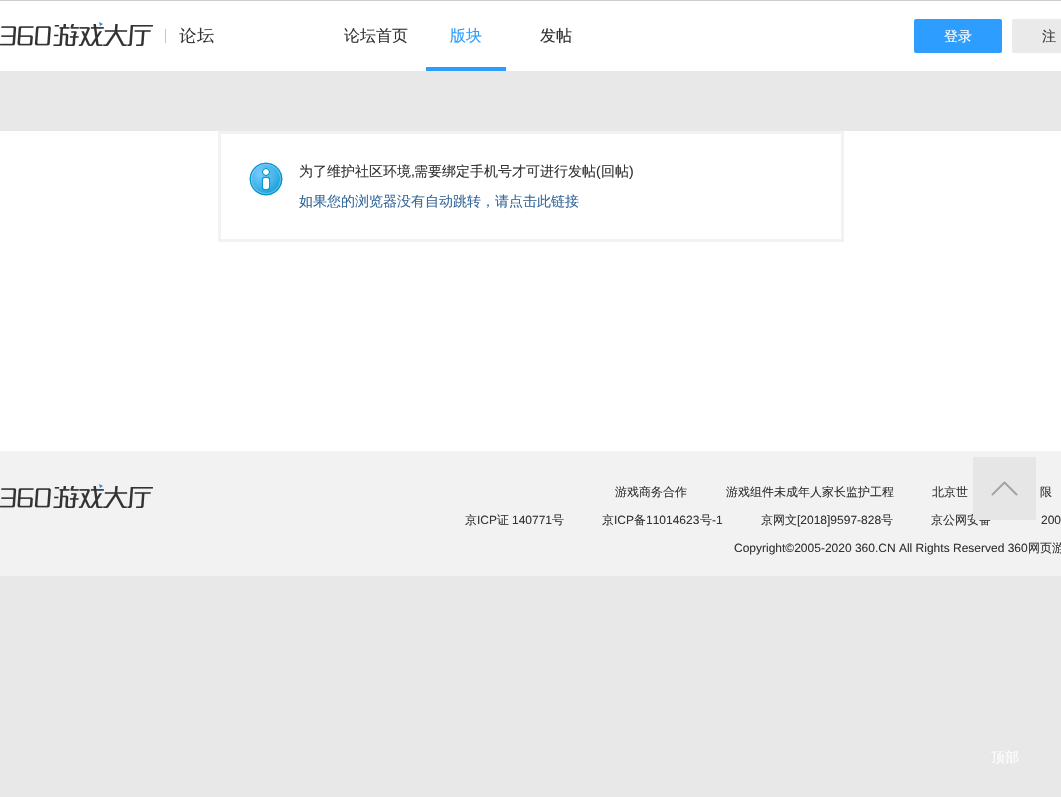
#include "include/core/SkBlurTypes.h"
#include "include/core/SkCanvas.h"
#include "include/core/SkData.h"
#include "include/core/SkFont.h"
#include "include/core/SkFontMgr.h"
#include "include/core/SkImage.h"
#include "include/core/SkMaskFilter.h"
#include "include/core/SkPaint.h"
#include "include/core/SkPathBuilder.h"
#include "include/core/SkTextBlob.h"
#include "include/effects/SkDashPathEffect.h"
#include "include/effects/SkGradientShader.h"
#include "include/utils/SkParsePath.h"

extern sk_sp<SkFontMgr> fontMgr;

void draw(SkCanvas* canvas) {
    SkPaint p;
    p.setAntiAlias(true);
    auto font = [&](const char* family, int weight, float size, bool italic = false) {
        SkFontStyle style(weight, SkFontStyle::kNormal_Width,
            italic ? SkFontStyle::kItalic_Slant : SkFontStyle::kUpright_Slant);
        SkFont result(fontMgr->matchFamilyStyle(family, style), size);
        result.setSubpixel(true);
        return result;
    };
    auto drawPhoto = [&](const char* path, float l, float t, float r, float b) {
        auto image = SkImages::DeferredFromEncodedData(SkData::MakeFromFileName(path));
        canvas->drawImageRect(image, SkRect::MakeLTRB(l, t, r, b), SkSamplingOptions());
    };
    canvas->clear(0xFFE8E8E8);
    p.setColor(0xFFCDCDCD);
    canvas->drawRect(SkRect::MakeLTRB(0, 0, 1061, 1), p);
    p.setColor(0xFFFFFFFF);
    canvas->drawRect(SkRect::MakeLTRB(0, 1, 1061, 71), p);
    drawPhoto("media/1.png", 0, 22, 214, 46);
    auto font1 = font("WenQuanYi Zen Hei", 500, 16);
    p.setColor(0xFF333333);
    canvas->drawString("论坛首页", 344, 41, font1, p);
    p.setColor(0xFF2D9DFF);
    canvas->drawRect(SkRect::MakeLTRB(426, 67, 506, 71), p);
    canvas->drawString("版块", 450, 41, font1, p);
    p.setColor(0xFF333333);
    canvas->drawString("发帖", 540, 41, font1, p);
    p.setColor(0xFF2D9DFF);
    canvas->drawRoundRect(SkRect::MakeLTRB(914, 19, 1002, 53), 2, 2, p);
    auto font2 = font("WenQuanYi Zen Hei", 500, 14);
    p.setColor(0xFFFFFFFF);
    canvas->drawString("登录", 944, 41, font2, p);
    p.setColor(0xFFEAEAEA);
    canvas->drawRoundRect(SkRect::MakeLTRB(1012, 19, 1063, 53), 2, 2, p);
    p.setColor(0xFF333333);
    canvas->drawString("注", 1042, 41, font2, p);
    p.setColor(0xFFFFFFFF);
    canvas->drawRect(SkRect::MakeLTRB(0, 131, 1061, 451), p);
    p.setStyle(SkPaint::kStroke_Style);
    p.setStrokeWidth(3);
    p.setColor(0xFFF2F2F2);
    canvas->drawRect(SkRect::MakeLTRB(219.5f, 132.5f, 842.5f, 240.5f), p);
    drawPhoto("media/2.png", 249, 162, 283, 196);
    p.setStyle(SkPaint::kFill_Style);
    p.setColor(0xFF333333);
    canvas->drawString("为了维护社区环境", 299, 176, font2, p);
    auto font3 = font("Liberation Sans", 400, 14);
    canvas->drawString(",", 411, 176, font3, p);
    canvas->drawString("需要绑定手机号才可进行发帖", 414, 176, font2, p);
    canvas->drawString("(", 596, 176, font3, p);
    canvas->drawString("回帖", 601, 176, font2, p);
    canvas->drawString(")", 629, 176, font3, p);
    p.setColor(0xFF336699);
    canvas->drawString("如果您的浏览器没有自动跳转，请点击此链接", 299, 206, font2, p);
    p.setColor(0xFFF2F2F2);
    canvas->drawRect(SkRect::MakeLTRB(0, 451, 1061, 576), p);
    drawPhoto("media/3.png", 0, 484, 153, 508);
    auto font4 = font("WenQuanYi Zen Hei", 500, 12);
    p.setColor(0xFF333333);
    {
        const struct { const char* s; float x, y; } items[] = {
            {"游戏商务合作", 615, 496},
            {"游戏组件未成年人家长监护工程", 726, 496},
            {"北京世", 932, 496},
            {"限", 1040, 496},
            {"京", 465, 524},
        };
        for (auto [s, x, y] : items) {
            canvas->drawString(s, x, y, font4, p);
        }
    }
    auto font5 = font("Liberation Sans", 400, 12);
    canvas->drawString("ICP", 477, 524, font5, p);
    canvas->drawString("证", 497, 524, font4, p);
    canvas->drawString("140771", 512, 524, font5, p);
    canvas->drawString("号", 552, 524, font4, p);
    canvas->drawString("京", 602, 524, font4, p);
    canvas->drawString("ICP", 614, 524, font5, p);
    canvas->drawString("备", 634, 524, font4, p);
    canvas->drawString("11014623", 646, 524, font5, p);
    canvas->drawString("号", 700, 524, font4, p);
    canvas->drawString("-1", 712, 524, font5, p);
    canvas->drawString("京网文", 761, 524, font4, p);
    canvas->drawString("[2018]9597-828", 797, 524, font5, p);
    canvas->drawString("号", 881, 524, font4, p);
    canvas->drawString("京公网安备", 931, 524, font4, p);
    canvas->drawString("200", 1041, 524, font5, p);
    canvas->drawString("Copyright©2005-2020 360.CN All Rights Reserved 360", 734, 552, font5, p);
    canvas->drawString("网页游", 1028, 552, font4, p);
    drawPhoto("media/4.png", 973, 457, 1036, 520);
    p.setColor(0xFFFFFFFF);
    canvas->drawString("顶部", 991, 762, font2, p);
}
